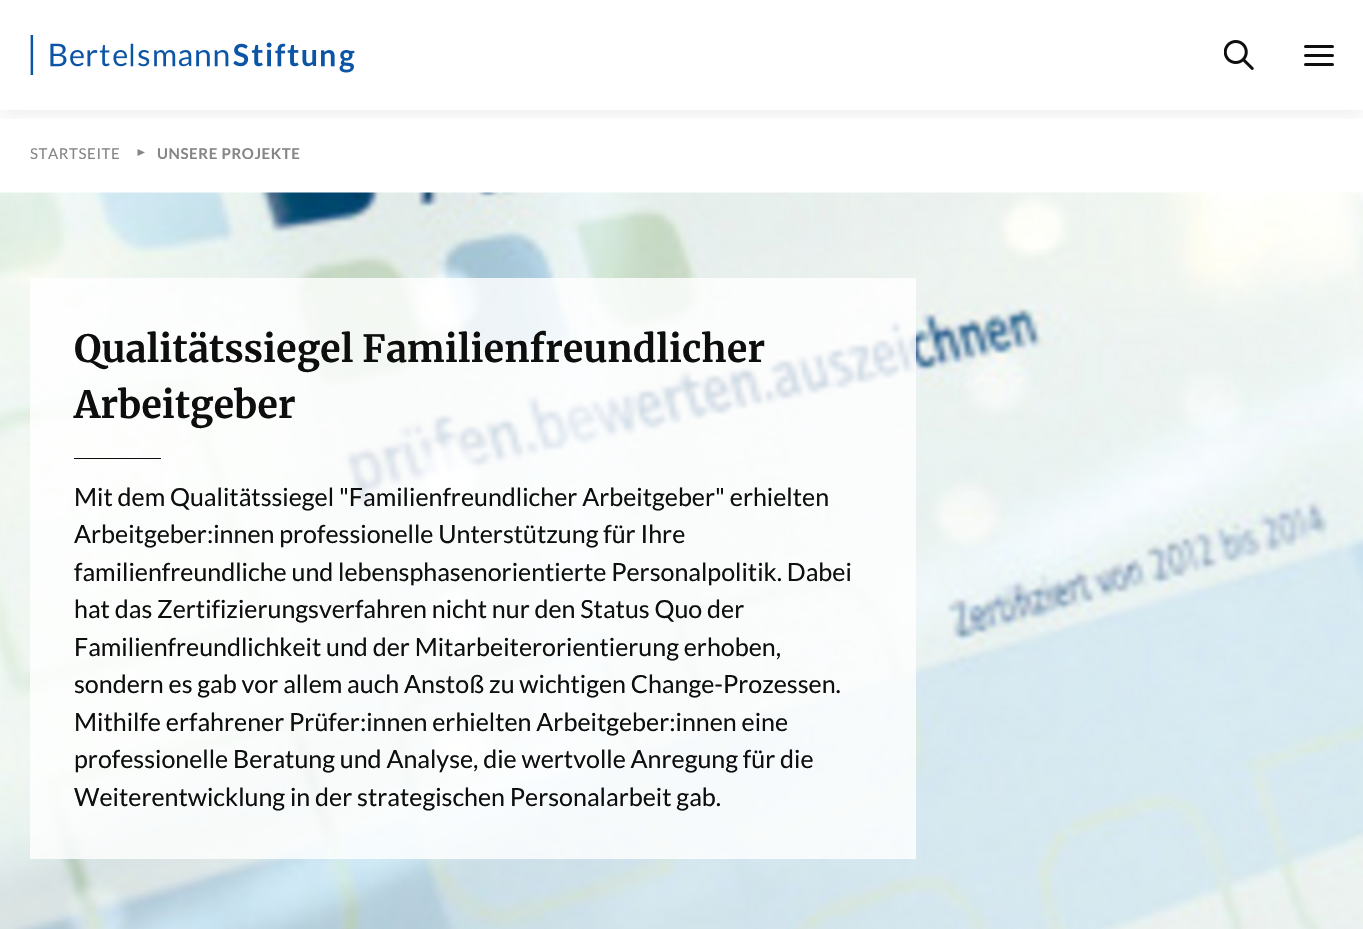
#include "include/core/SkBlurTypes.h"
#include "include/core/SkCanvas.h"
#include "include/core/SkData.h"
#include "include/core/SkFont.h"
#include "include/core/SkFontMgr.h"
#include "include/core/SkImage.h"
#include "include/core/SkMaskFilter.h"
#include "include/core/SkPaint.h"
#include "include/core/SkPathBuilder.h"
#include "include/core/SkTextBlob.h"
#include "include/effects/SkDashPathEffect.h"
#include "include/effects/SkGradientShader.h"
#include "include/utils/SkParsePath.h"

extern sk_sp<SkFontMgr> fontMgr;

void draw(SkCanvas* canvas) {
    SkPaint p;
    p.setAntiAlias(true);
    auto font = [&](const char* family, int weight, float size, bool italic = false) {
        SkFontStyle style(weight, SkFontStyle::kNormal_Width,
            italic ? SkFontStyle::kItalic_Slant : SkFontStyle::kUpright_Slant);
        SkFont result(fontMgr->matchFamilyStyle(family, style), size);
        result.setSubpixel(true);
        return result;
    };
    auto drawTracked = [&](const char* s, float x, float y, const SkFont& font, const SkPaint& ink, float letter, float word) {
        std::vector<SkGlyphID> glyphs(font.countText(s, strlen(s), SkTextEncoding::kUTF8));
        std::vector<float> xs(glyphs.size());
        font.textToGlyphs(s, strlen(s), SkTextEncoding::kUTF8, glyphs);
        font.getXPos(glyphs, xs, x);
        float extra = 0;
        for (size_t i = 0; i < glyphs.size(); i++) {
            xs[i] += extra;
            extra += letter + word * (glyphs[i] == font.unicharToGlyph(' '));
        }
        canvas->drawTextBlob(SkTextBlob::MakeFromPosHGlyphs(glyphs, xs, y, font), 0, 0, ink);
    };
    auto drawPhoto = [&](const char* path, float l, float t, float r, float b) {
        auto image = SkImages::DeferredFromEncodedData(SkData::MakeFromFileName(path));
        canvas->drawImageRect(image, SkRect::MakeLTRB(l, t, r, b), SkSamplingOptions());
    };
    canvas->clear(0xFFFFFFFF);
    canvas->save();
    canvas->clipRect(SkRect::MakeLTRB(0, 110, 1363, 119));
    p.setColor(0x14000000);
    p.setMaskFilter(SkMaskFilter::MakeBlur(kNormal_SkBlurStyle, 9.5f));
    canvas->drawRect(SkRect::MakeLTRB(0, 3, 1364, 113), p);
    p.setMaskFilter(nullptr);
    canvas->restore();
    drawPhoto("media/1.png", 30, 35, 355, 75);
    drawPhoto("media/2.png", 1224, 40, 1254, 70);
    p.setColor(0xFF0E0E0E);
    canvas->drawRoundRect(SkRect::MakeLTRB(1304, 45, 1334, 48), 1.5f, 1.5f, p);
    canvas->drawRoundRect(SkRect::MakeLTRB(1304, 54, 1334, 57), 1.5f, 1.5f, p);
    canvas->drawRoundRect(SkRect::MakeLTRB(1304, 63, 1334, 66), 1.5f, 1.5f, p);
    auto font1 = font("Lato", 400, 15);
    p.setColor(0xFF868686);
    drawTracked("STARTSEITE", 30, 159, font1, p, 0.6f, 0);
    canvas->drawPath(SkPathBuilder().moveTo(137.5f, 156).lineTo(137.5f, 149).lineTo(145, 152.5f).close().detach(), p);
    auto font2 = font("Lato", 700, 15);
    drawTracked("UNSERE PROJEKTE", 157, 159, font2, p, 0.6f, 0);
    drawPhoto("media/3.png", 0, 192, 1363, 929);
    p.setColor(0xCCFFFFFF);
    canvas->drawRect(SkRect::MakeLTRB(30, 278, 916, 859), p);
    auto font3 = font("Merriweather", 700, 37.5f);
    p.setColor(0xFF0E0E0E);
    canvas->drawString("Qualitätssiegel Familienfreundlicher", 74, 362, font3, p);
    canvas->drawString("Arbeitgeber", 74, 418, font3, p);
    canvas->drawRect(SkRect::MakeLTRB(74, 458, 161, 459), p);
    auto font4 = font("Lato", 400, 25);
    {
        const struct { const char* s; float x, y; } items[] = {
            {"Mit dem Qualitätssiegel \"Familienfreundlicher Arbeitgeber\" erhielten", 74, 506},
            {"Arbeitgeber:innen professionelle Unterstützung für Ihre", 74, 543},
            {"familienfreundliche und lebensphasenorientierte Personalpolitik. Dabei", 74, 581},
            {"hat das Zertifizierungsverfahren nicht nur den Status Quo der", 74, 618},
            {"Familienfreundlichkeit und der Mitarbeiterorientierung erhoben,", 74, 656},
            {"sondern es gab vor allem auch Anstoß zu wichtigen Change-Prozessen.", 74, 693},
            {"Mithilfe erfahrener Prüfer:innen erhielten Arbeitgeber:innen eine", 74, 731},
            {"professionelle Beratung und Analyse, die wertvolle Anregung für die", 74, 768},
            {"Weiterentwicklung in der strategischen Personalarbeit gab.", 74, 806},
        };
        for (auto [s, x, y] : items) {
            canvas->drawString(s, x, y, font4, p);
        }
    }
}
